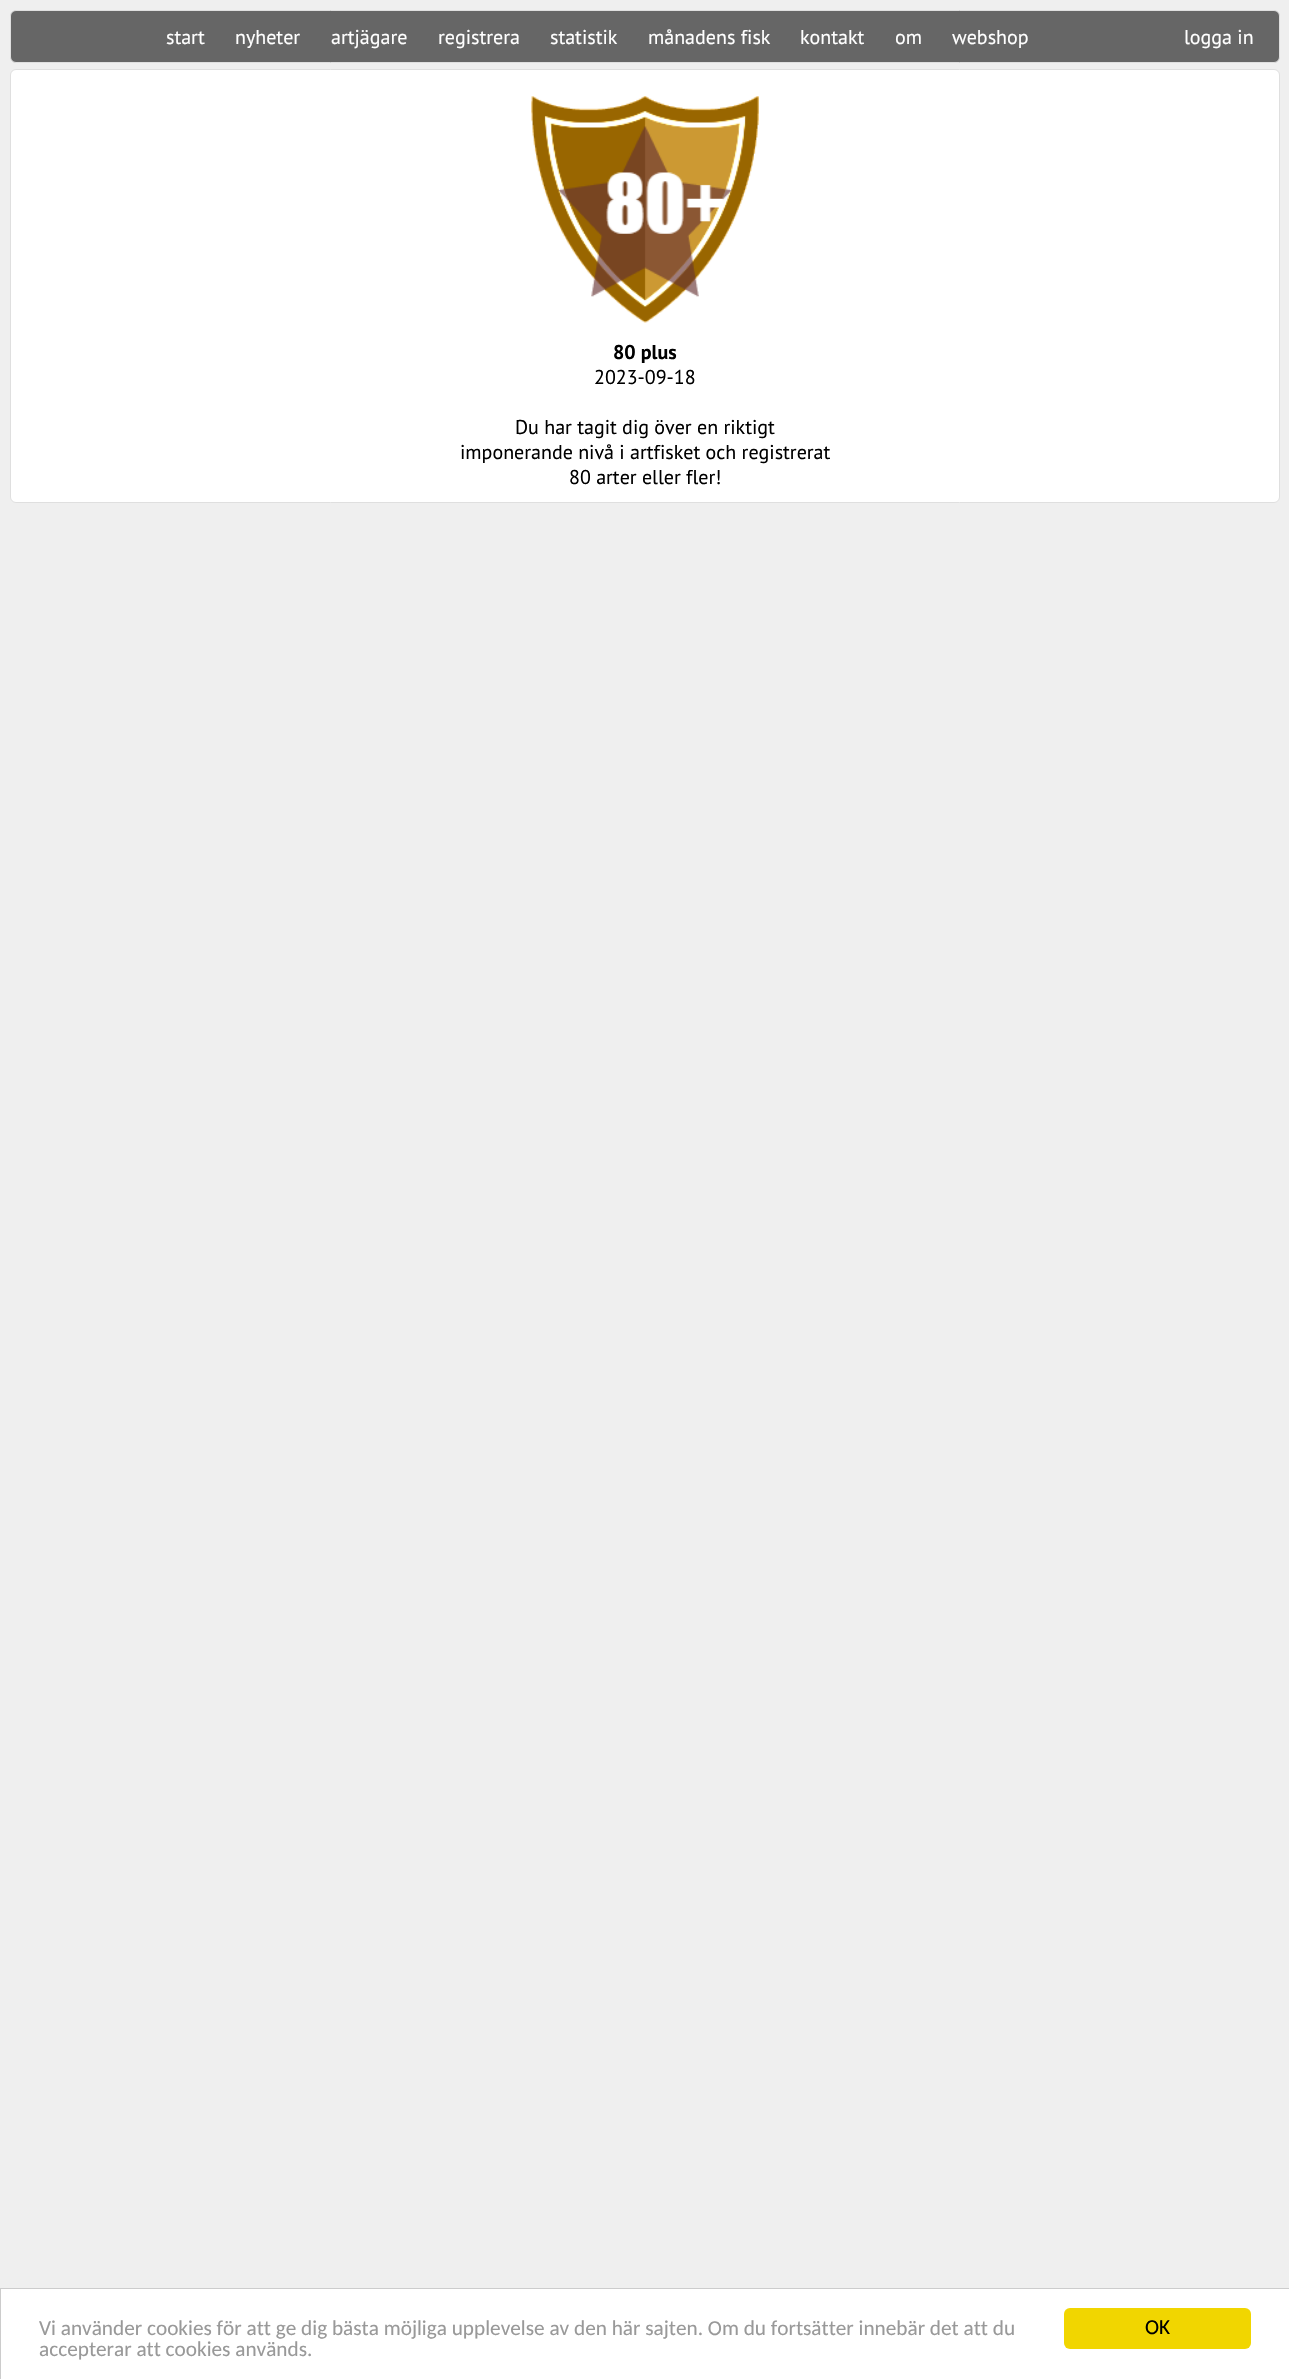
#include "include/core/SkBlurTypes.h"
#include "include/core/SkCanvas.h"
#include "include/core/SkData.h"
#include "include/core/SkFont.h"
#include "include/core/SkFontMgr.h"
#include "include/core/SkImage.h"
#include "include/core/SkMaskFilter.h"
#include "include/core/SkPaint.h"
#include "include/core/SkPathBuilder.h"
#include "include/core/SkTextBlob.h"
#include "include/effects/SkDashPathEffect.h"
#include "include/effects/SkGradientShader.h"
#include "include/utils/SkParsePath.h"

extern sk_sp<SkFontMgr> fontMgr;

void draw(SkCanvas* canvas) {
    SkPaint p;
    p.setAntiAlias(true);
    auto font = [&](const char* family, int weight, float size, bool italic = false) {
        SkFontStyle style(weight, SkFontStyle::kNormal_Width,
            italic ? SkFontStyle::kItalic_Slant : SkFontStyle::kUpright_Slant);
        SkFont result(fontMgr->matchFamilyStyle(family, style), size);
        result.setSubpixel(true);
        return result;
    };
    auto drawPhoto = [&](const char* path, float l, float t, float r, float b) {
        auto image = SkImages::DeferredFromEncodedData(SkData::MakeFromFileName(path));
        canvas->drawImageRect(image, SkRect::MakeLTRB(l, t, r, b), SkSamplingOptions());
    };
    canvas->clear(0xFFEFEFEF);
    p.setColor(0xFF666666);
    canvas->drawRoundRect(SkRect::MakeLTRB(10.5f, 10.5f, 1279.5f, 62.5f), 5.5f, 5.5f, p);
    p.setStyle(SkPaint::kStroke_Style);
    p.setStrokeWidth(1);
    p.setColor(0xFFDFDFDF);
    canvas->drawRoundRect(SkRect::MakeLTRB(10.5f, 10.5f, 1279.5f, 62.5f), 5.5f, 5.5f, p);
    auto font1 = font("PT Sans", 400, 20);
    p.setStyle(SkPaint::kFill_Style);
    p.setColor(0xFFFFFFFF);
    {
        const struct { const char* s; float x, y; } items[] = {
            {"start", 166, 44},
            {"nyheter", 235, 44},
            {"artjägare", 331, 44},
            {"registrera", 438, 44},
            {"statistik", 550, 44},
            {"månadens fisk", 648, 44},
            {"kontakt", 800, 44},
            {"om", 895, 44},
            {"webshop", 952, 44},
            {"logga in", 1184, 44},
        };
        for (auto [s, x, y] : items) {
            canvas->drawString(s, x, y, font1, p);
        }
    }
    canvas->drawRoundRect(SkRect::MakeLTRB(10.5f, 69.5f, 1279.5f, 502.5f), 5.5f, 5.5f, p);
    p.setStyle(SkPaint::kStroke_Style);
    p.setColor(0xFFDFDFDF);
    canvas->drawRoundRect(SkRect::MakeLTRB(10.5f, 69.5f, 1279.5f, 502.5f), 5.5f, 5.5f, p);
    drawPhoto("media/1.png", 531, 96, 759, 323);
    auto font2 = font("PT Sans", 700, 20);
    p.setStyle(SkPaint::kFill_Style);
    p.setColor(0xFF000000);
    canvas->drawString("80 plus", 613, 359, font2, p);
    {
        const struct { const char* s; float x, y; } items[] = {
            {"2023-09-18", 594, 384},
            {"Du har tagit dig över en riktigt", 515, 434},
            {"imponerande nivå i artfisket och registrerat", 460, 459},
            {"80 arter eller fler!", 569, 484},
        };
        for (auto [s, x, y] : items) {
            canvas->drawString(s, x, y, font1, p);
        }
    }
    p.setColor(0xFFFFFFFF);
    canvas->drawRect(SkRect::MakeLTRB(0.5f, 2288.5f, 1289.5f, 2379.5f), p);
    p.setStyle(SkPaint::kStroke_Style);
    p.setColor(0xFFCCCCCC);
    canvas->drawRect(SkRect::MakeLTRB(0.5f, 2288.5f, 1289.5f, 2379.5f), p);
    auto font3 = font("Carlito", 400, 21.25f);
    p.setStyle(SkPaint::kFill_Style);
    p.setColor(0xFF999999);
    canvas->drawString("Vi använder cookies för att ge dig bästa möjliga upplevelse av den här sajten. Om du fortsätter innebär det att du", 39, 2335, font3, p);
    canvas->drawString("accepterar att cookies används.", 39, 2356, font3, p);
    p.setColor(0xFFF1D600);
    canvas->drawRoundRect(SkRect::MakeLTRB(1064, 2308, 1251, 2349), 6, 6, p);
    p.setColor(0xFF000000);
    canvas->drawString("OK", 1145, 2334, font3, p);
}
